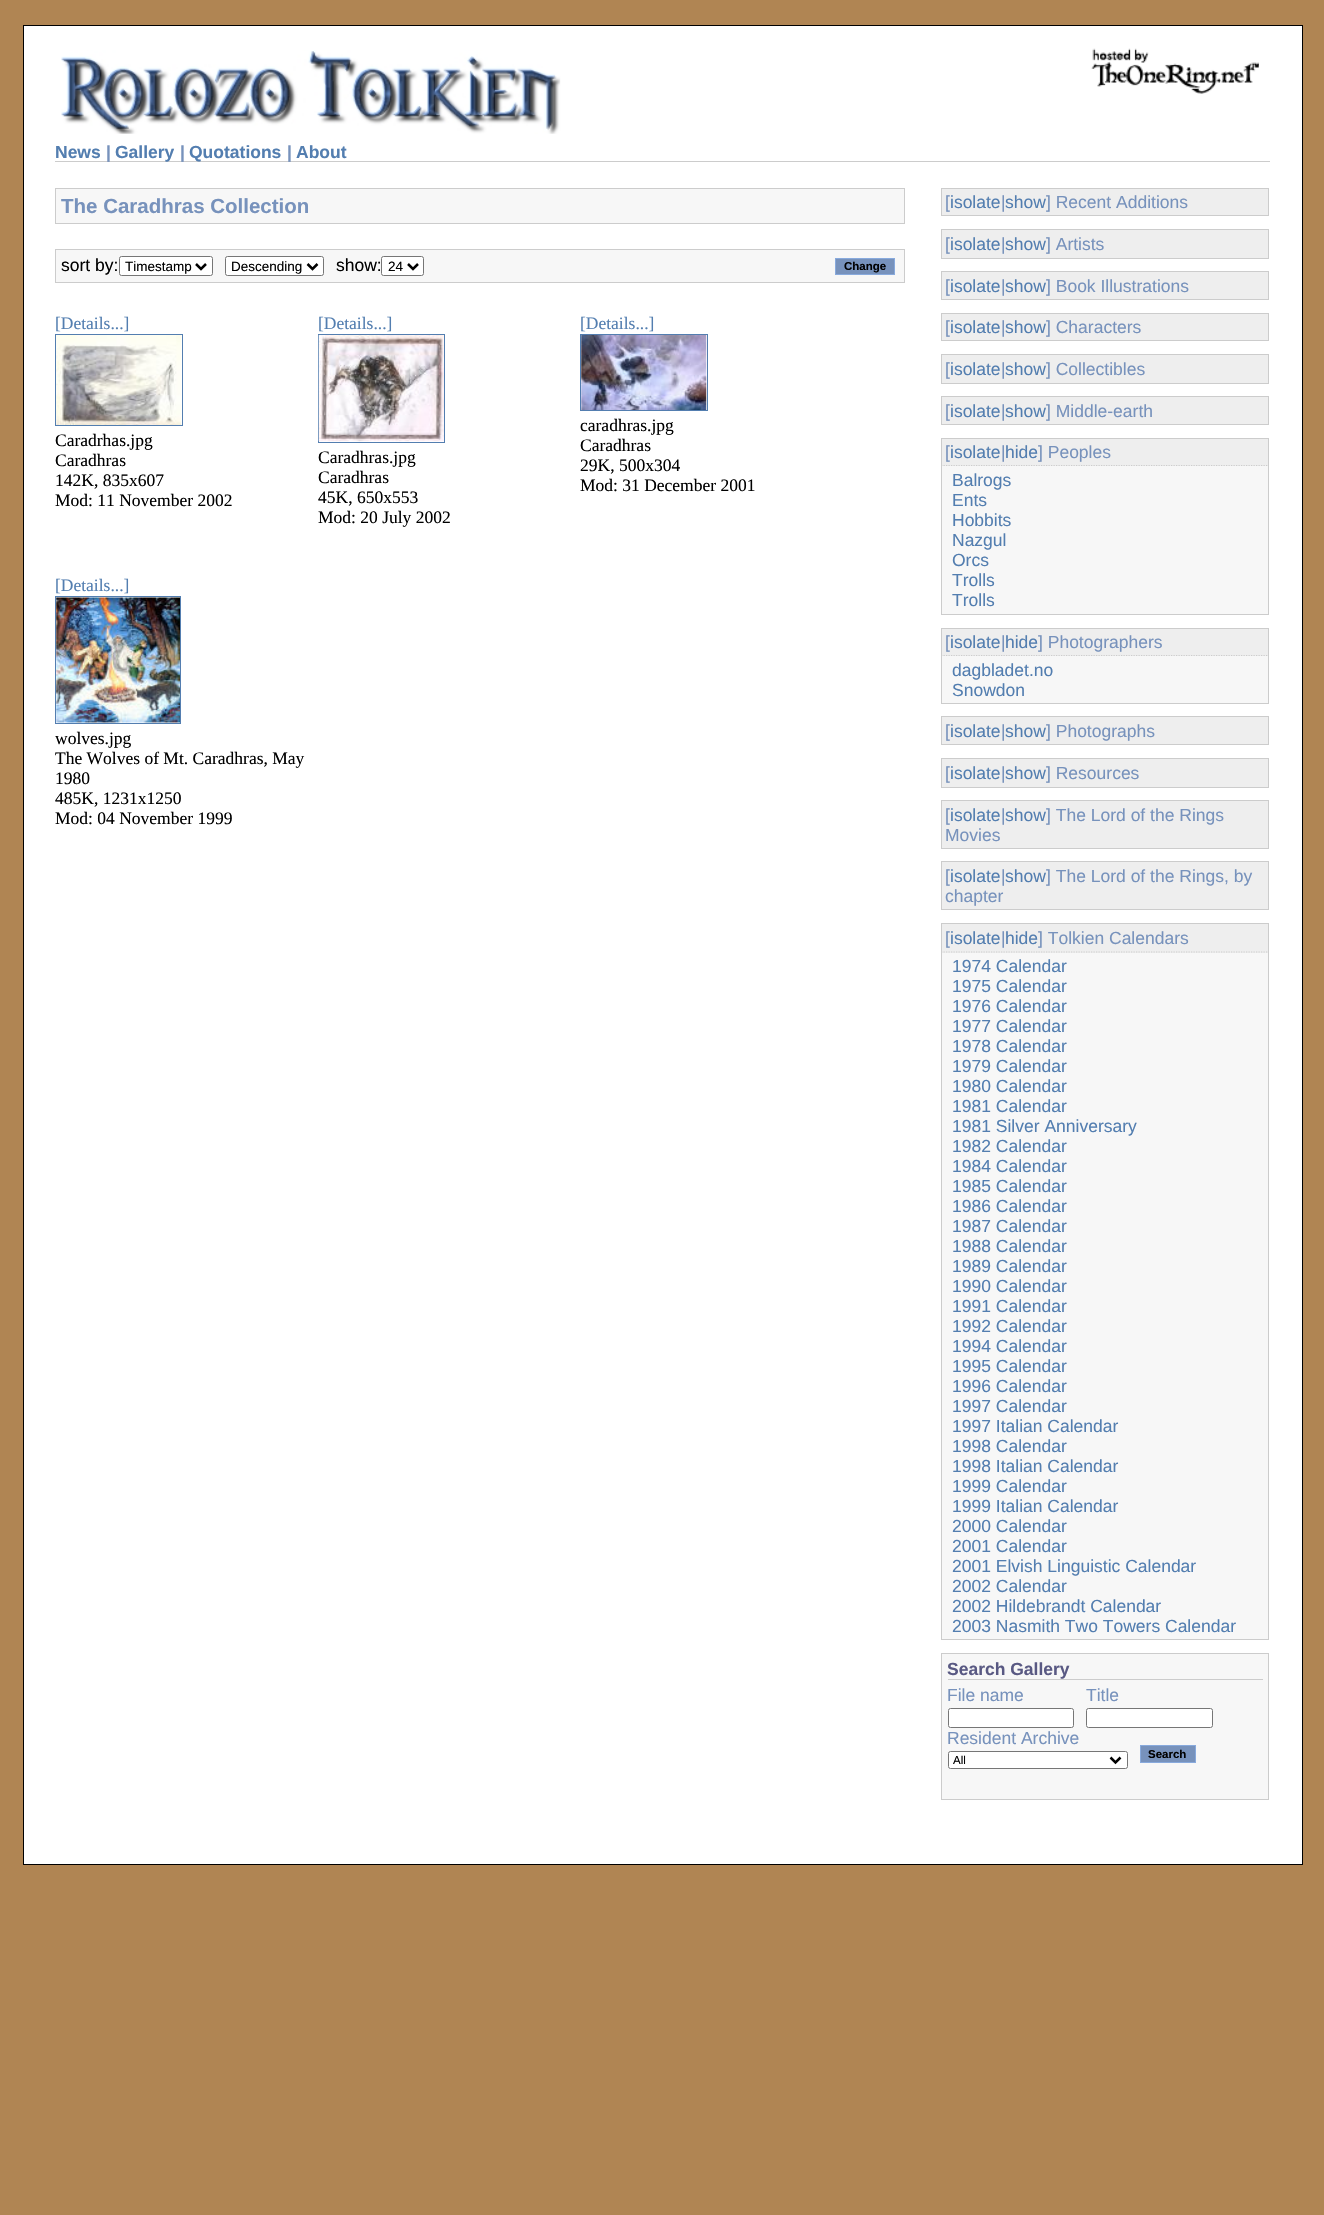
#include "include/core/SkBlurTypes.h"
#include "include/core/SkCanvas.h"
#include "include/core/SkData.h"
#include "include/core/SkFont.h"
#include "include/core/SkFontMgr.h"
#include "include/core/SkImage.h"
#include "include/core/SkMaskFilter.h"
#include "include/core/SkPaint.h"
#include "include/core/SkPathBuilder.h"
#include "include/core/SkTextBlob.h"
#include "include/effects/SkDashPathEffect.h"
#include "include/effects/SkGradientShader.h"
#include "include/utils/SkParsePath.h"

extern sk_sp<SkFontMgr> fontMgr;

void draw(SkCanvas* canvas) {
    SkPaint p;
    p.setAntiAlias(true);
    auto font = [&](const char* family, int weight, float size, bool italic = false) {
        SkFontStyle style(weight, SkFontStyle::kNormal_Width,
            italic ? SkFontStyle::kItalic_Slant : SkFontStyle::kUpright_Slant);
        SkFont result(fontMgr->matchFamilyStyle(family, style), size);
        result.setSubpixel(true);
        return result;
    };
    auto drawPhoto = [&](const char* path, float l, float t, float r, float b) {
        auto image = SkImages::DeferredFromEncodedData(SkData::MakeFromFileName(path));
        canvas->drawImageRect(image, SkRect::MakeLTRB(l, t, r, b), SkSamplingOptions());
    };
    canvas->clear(0xFFB08553);
    p.setColor(0xFFFFFFFF);
    canvas->drawRect(SkRect::MakeLTRB(23.5f, 25.5f, 1302.5f, 1864.5f), p);
    p.setStyle(SkPaint::kStroke_Style);
    p.setStrokeWidth(1);
    p.setColor(0xFF000000);
    canvas->drawRect(SkRect::MakeLTRB(23.5f, 25.5f, 1302.5f, 1864.5f), p);
    drawPhoto("media/1.png", 61, 50, 561, 134);
    drawPhoto("media/2.png", 1091, 48, 1259, 94);
    p.setStyle(SkPaint::kFill_Style);
    p.setColor(0xFFCCCCCC);
    canvas->drawRect(SkRect::MakeLTRB(55, 161, 1270, 162), p);
    auto font1 = font("Liberation Sans", 700, 17.5f);
    p.setColor(0xFF537EB0);
    canvas->drawString("News", 55, 158, font1, p);
    p.setColor(0xFF7792BC);
    canvas->drawString("|", 106, 158, font1, p);
    p.setColor(0xFF537EB0);
    canvas->drawString("Gallery", 115, 158, font1, p);
    p.setColor(0xFF7792BC);
    canvas->drawString("|", 180, 158, font1, p);
    p.setColor(0xFF537EB0);
    canvas->drawString("Quotations", 189, 158, font1, p);
    p.setColor(0xFF7792BC);
    canvas->drawString("|", 287, 158, font1, p);
    p.setColor(0xFF537EB0);
    canvas->drawString("About", 296, 158, font1, p);
    p.setColor(0xFFF7F7F7);
    canvas->drawRect(SkRect::MakeLTRB(55.5f, 188.5f, 904.5f, 223.5f), p);
    p.setStyle(SkPaint::kStroke_Style);
    p.setColor(0xFFCCCCCC);
    canvas->drawRect(SkRect::MakeLTRB(55.5f, 188.5f, 904.5f, 223.5f), p);
    auto font2 = font("Liberation Sans", 700, 20.5f);
    p.setStyle(SkPaint::kFill_Style);
    p.setColor(0xFF7792BC);
    canvas->drawString("The Caradhras Collection", 61, 213, font2, p);
    p.setColor(0xFFF7F7F7);
    canvas->drawRect(SkRect::MakeLTRB(55.5f, 249.5f, 904.5f, 282.5f), p);
    p.setStyle(SkPaint::kStroke_Style);
    p.setColor(0xFFCCCCCC);
    canvas->drawRect(SkRect::MakeLTRB(55.5f, 249.5f, 904.5f, 282.5f), p);
    auto font3 = font("Liberation Sans", 400, 17.5f);
    p.setStyle(SkPaint::kFill_Style);
    p.setColor(0xFF000000);
    canvas->drawString("sort by:", 61, 271, font3, p);
    p.setColor(0xFFFFFFFF);
    canvas->drawRoundRect(SkRect::MakeLTRB(119.5f, 256.5f, 212.5f, 275.5f), 2, 2, p);
    p.setStyle(SkPaint::kStroke_Style);
    p.setColor(0xFF767676);
    canvas->drawRoundRect(SkRect::MakeLTRB(119.5f, 256.5f, 212.5f, 275.5f), 2, 2, p);
    p.setStrokeWidth(2.5f);
    p.setColor(0xFF000000);
    canvas->drawPath(SkPathBuilder().moveTo(196, 264).lineTo(201, 269).lineTo(206, 264).detach(), p);
    auto font4 = font("Liberation Sans", 400, 13.5f);
    p.setStyle(SkPaint::kFill_Style);
    canvas->drawString("Timestamp", 125, 271, font4, p);
    p.setColor(0xFFFFFFFF);
    canvas->drawRoundRect(SkRect::MakeLTRB(225.5f, 256.5f, 323.5f, 275.5f), 2, 2, p);
    p.setStyle(SkPaint::kStroke_Style);
    p.setStrokeWidth(1);
    p.setColor(0xFF767676);
    canvas->drawRoundRect(SkRect::MakeLTRB(225.5f, 256.5f, 323.5f, 275.5f), 2, 2, p);
    p.setStrokeWidth(2.5f);
    p.setColor(0xFF000000);
    canvas->drawPath(SkPathBuilder().moveTo(307.5f, 264).lineTo(312.5f, 269).lineTo(317.5f, 264).detach(), p);
    p.setStyle(SkPaint::kFill_Style);
    canvas->drawString("Descending", 231, 271, font4, p);
    canvas->drawString("show:", 336, 271, font3, p);
    p.setColor(0xFFFFFFFF);
    canvas->drawRoundRect(SkRect::MakeLTRB(381.5f, 256.5f, 423.5f, 275.5f), 2, 2, p);
    p.setStyle(SkPaint::kStroke_Style);
    p.setStrokeWidth(1);
    p.setColor(0xFF767676);
    canvas->drawRoundRect(SkRect::MakeLTRB(381.5f, 256.5f, 423.5f, 275.5f), 2, 2, p);
    p.setStrokeWidth(2.5f);
    p.setColor(0xFF000000);
    canvas->drawPath(SkPathBuilder().moveTo(408, 264).lineTo(413, 269).lineTo(418, 264).detach(), p);
    p.setStyle(SkPaint::kFill_Style);
    canvas->drawString("24", 388, 271, font4, p);
    p.setColor(0xFF7792BC);
    canvas->drawRect(SkRect::MakeLTRB(835.5f, 258.5f, 894.5f, 274.5f), p);
    p.setStyle(SkPaint::kStroke_Style);
    p.setStrokeWidth(1);
    p.setColor(0xFF88AADD);
    canvas->drawRect(SkRect::MakeLTRB(835.5f, 258.5f, 894.5f, 274.5f), p);
    auto font5 = font("Liberation Sans", 700, 11.5f);
    p.setStyle(SkPaint::kFill_Style);
    p.setColor(0xFF000000);
    canvas->drawString("Change", 844, 270, font5, p);
    auto font6 = font("Liberation Serif", 400, 17.5f);
    p.setColor(0xFF537EB0);
    canvas->drawString("[Details...]", 55, 329, font6, p);
    p.setStyle(SkPaint::kStroke_Style);
    canvas->drawRect(SkRect::MakeLTRB(55.5f, 334.5f, 182.5f, 425.5f), p);
    drawPhoto("media/3.png", 56, 335, 182, 425);
    p.setStyle(SkPaint::kFill_Style);
    p.setColor(0xFF000000);
    {
        const struct { const char* s; float x, y; } items[] = {
            {"Caradrhas.jpg", 55, 446},
            {"Caradhras", 55, 466},
            {"142K, 835x607", 55, 486},
            {"Mod: 11 November 2002", 55, 506},
        };
        for (auto [s, x, y] : items) {
            canvas->drawString(s, x, y, font6, p);
        }
    }
    p.setColor(0xFF537EB0);
    canvas->drawString("[Details...]", 318, 329, font6, p);
    p.setStyle(SkPaint::kStroke_Style);
    canvas->drawRect(SkRect::MakeLTRB(318.5f, 334.5f, 444.5f, 442.5f), p);
    drawPhoto("media/4.png", 318, 335, 444, 442);
    p.setStyle(SkPaint::kFill_Style);
    p.setColor(0xFF000000);
    {
        const struct { const char* s; float x, y; } items[] = {
            {"Caradhras.jpg", 318, 463},
            {"Caradhras", 318, 483},
            {"45K, 650x553", 318, 503},
            {"Mod: 20 July 2002", 318, 523},
        };
        for (auto [s, x, y] : items) {
            canvas->drawString(s, x, y, font6, p);
        }
    }
    p.setColor(0xFF537EB0);
    canvas->drawString("[Details...]", 580, 329, font6, p);
    p.setStyle(SkPaint::kStroke_Style);
    canvas->drawRect(SkRect::MakeLTRB(580.5f, 334.5f, 707.5f, 410.5f), p);
    drawPhoto("media/5.png", 581, 335, 707, 410);
    p.setStyle(SkPaint::kFill_Style);
    p.setColor(0xFF000000);
    {
        const struct { const char* s; float x, y; } items[] = {
            {"caradhras.jpg", 580, 431},
            {"Caradhras", 580, 451},
            {"29K, 500x304", 580, 471},
            {"Mod: 31 December 2001", 580, 491},
        };
        for (auto [s, x, y] : items) {
            canvas->drawString(s, x, y, font6, p);
        }
    }
    p.setColor(0xFF537EB0);
    canvas->drawString("[Details...]", 55, 591, font6, p);
    p.setStyle(SkPaint::kStroke_Style);
    canvas->drawRect(SkRect::MakeLTRB(55.5f, 596.5f, 180.5f, 723.5f), p);
    drawPhoto("media/6.png", 56, 597, 180, 723);
    p.setStyle(SkPaint::kFill_Style);
    p.setColor(0xFF000000);
    {
        const struct { const char* s; float x, y; } items[] = {
            {"wolves.jpg", 55, 744},
            {"The Wolves of Mt. Caradhras, May", 55, 764},
            {"1980", 55, 784},
            {"485K, 1231x1250", 55, 804},
            {"Mod: 04 November 1999", 55, 824},
        };
        for (auto [s, x, y] : items) {
            canvas->drawString(s, x, y, font6, p);
        }
    }
    p.setColor(0xFFEEEEEE);
    canvas->drawRect(SkRect::MakeLTRB(941.5f, 188.5f, 1268.5f, 215.5f), p);
    p.setStyle(SkPaint::kStroke_Style);
    p.setColor(0xFFCCCCCC);
    canvas->drawRect(SkRect::MakeLTRB(941.5f, 188.5f, 1268.5f, 215.5f), p);
    p.setStyle(SkPaint::kFill_Style);
    p.setColor(0xFF7792BC);
    canvas->drawString("[", 945, 208, font3, p);
    p.setColor(0xFF537EB0);
    canvas->drawString("isolate", 950, 208, font3, p);
    p.setColor(0xFF7792BC);
    canvas->drawString("|", 1001, 208, font3, p);
    p.setColor(0xFF537EB0);
    canvas->drawString("show", 1005, 208, font3, p);
    p.setColor(0xFF7792BC);
    canvas->drawString("] Recent Additions", 1046, 208, font3, p);
    p.setColor(0xFFEEEEEE);
    canvas->drawRect(SkRect::MakeLTRB(941.5f, 229.5f, 1268.5f, 258.5f), p);
    p.setStyle(SkPaint::kStroke_Style);
    p.setColor(0xFFCCCCCC);
    canvas->drawRect(SkRect::MakeLTRB(941.5f, 229.5f, 1268.5f, 258.5f), p);
    p.setStyle(SkPaint::kFill_Style);
    p.setColor(0xFF7792BC);
    canvas->drawString("[", 945, 250, font3, p);
    p.setColor(0xFF537EB0);
    canvas->drawString("isolate", 950, 250, font3, p);
    p.setColor(0xFF7792BC);
    canvas->drawString("|", 1001, 250, font3, p);
    p.setColor(0xFF537EB0);
    canvas->drawString("show", 1005, 250, font3, p);
    p.setColor(0xFF7792BC);
    canvas->drawString("] Artists", 1046, 250, font3, p);
    p.setColor(0xFFEEEEEE);
    canvas->drawRect(SkRect::MakeLTRB(941.5f, 271.5f, 1268.5f, 299.5f), p);
    p.setStyle(SkPaint::kStroke_Style);
    p.setColor(0xFFCCCCCC);
    canvas->drawRect(SkRect::MakeLTRB(941.5f, 271.5f, 1268.5f, 299.5f), p);
    p.setStyle(SkPaint::kFill_Style);
    p.setColor(0xFF7792BC);
    canvas->drawString("[", 945, 292, font3, p);
    p.setColor(0xFF537EB0);
    canvas->drawString("isolate", 950, 292, font3, p);
    p.setColor(0xFF7792BC);
    canvas->drawString("|", 1001, 292, font3, p);
    p.setColor(0xFF537EB0);
    canvas->drawString("show", 1005, 292, font3, p);
    p.setColor(0xFF7792BC);
    canvas->drawString("] Book Illustrations", 1046, 292, font3, p);
    p.setColor(0xFFEEEEEE);
    canvas->drawRect(SkRect::MakeLTRB(941.5f, 313.5f, 1268.5f, 340.5f), p);
    p.setStyle(SkPaint::kStroke_Style);
    p.setColor(0xFFCCCCCC);
    canvas->drawRect(SkRect::MakeLTRB(941.5f, 313.5f, 1268.5f, 340.5f), p);
    p.setStyle(SkPaint::kFill_Style);
    p.setColor(0xFF7792BC);
    canvas->drawString("[", 945, 333, font3, p);
    p.setColor(0xFF537EB0);
    canvas->drawString("isolate", 950, 333, font3, p);
    p.setColor(0xFF7792BC);
    canvas->drawString("|", 1001, 333, font3, p);
    p.setColor(0xFF537EB0);
    canvas->drawString("show", 1005, 333, font3, p);
    p.setColor(0xFF7792BC);
    canvas->drawString("] Characters", 1046, 333, font3, p);
    p.setColor(0xFFEEEEEE);
    canvas->drawRect(SkRect::MakeLTRB(941.5f, 354.5f, 1268.5f, 383.5f), p);
    p.setStyle(SkPaint::kStroke_Style);
    p.setColor(0xFFCCCCCC);
    canvas->drawRect(SkRect::MakeLTRB(941.5f, 354.5f, 1268.5f, 383.5f), p);
    p.setStyle(SkPaint::kFill_Style);
    p.setColor(0xFF7792BC);
    canvas->drawString("[", 945, 375, font3, p);
    p.setColor(0xFF537EB0);
    canvas->drawString("isolate", 950, 375, font3, p);
    p.setColor(0xFF7792BC);
    canvas->drawString("|", 1001, 375, font3, p);
    p.setColor(0xFF537EB0);
    canvas->drawString("show", 1005, 375, font3, p);
    p.setColor(0xFF7792BC);
    canvas->drawString("] Collectibles", 1046, 375, font3, p);
    p.setColor(0xFFEEEEEE);
    canvas->drawRect(SkRect::MakeLTRB(941.5f, 396.5f, 1268.5f, 424.5f), p);
    p.setStyle(SkPaint::kStroke_Style);
    p.setColor(0xFFCCCCCC);
    canvas->drawRect(SkRect::MakeLTRB(941.5f, 396.5f, 1268.5f, 424.5f), p);
    p.setStyle(SkPaint::kFill_Style);
    p.setColor(0xFF7792BC);
    canvas->drawString("[", 945, 417, font3, p);
    p.setColor(0xFF537EB0);
    canvas->drawString("isolate", 950, 417, font3, p);
    p.setColor(0xFF7792BC);
    canvas->drawString("|", 1001, 417, font3, p);
    p.setColor(0xFF537EB0);
    canvas->drawString("show", 1005, 417, font3, p);
    p.setColor(0xFF7792BC);
    canvas->drawString("] Middle-earth", 1046, 417, font3, p);
    {
        const struct { float l, t, r, b; SkColor color; } items[] = {
            {942, 439, 1268, 466, 0xFFEEEEEE},
            {941, 438, 1269, 439, 0xFFCCCCCC},
            {1268, 438, 1269, 466, 0xFFCCCCCC},
        };
        for (auto [l, t, r, b, color] : items) {
            p.setColor(color);
            canvas->drawRect(SkRect::MakeLTRB(l, t, r, b), p);
        }
    }
    p.setStyle(SkPaint::kStroke_Style);
    p.setStrokeWidth(1.2f);
    p.setPathEffect(SkDashPathEffect::Make({{1.25f, 1.25f}}, 0));
    canvas->drawPath(SkPathBuilder().moveTo(941, 465.5f).lineTo(1269, 465.5f).detach(), p);
    p.setPathEffect(nullptr);
    p.setStyle(SkPaint::kFill_Style);
    canvas->drawRect(SkRect::MakeLTRB(941, 438, 942, 466), p);
    p.setColor(0xFF7792BC);
    canvas->drawString("[", 945, 458, font3, p);
    p.setColor(0xFF537EB0);
    canvas->drawString("isolate", 950, 458, font3, p);
    p.setColor(0xFF7792BC);
    canvas->drawString("|", 1001, 458, font3, p);
    p.setColor(0xFF537EB0);
    canvas->drawString("hide", 1005, 458, font3, p);
    p.setColor(0xFF7792BC);
    canvas->drawString("] Peoples", 1038, 458, font3, p);
    {
        const struct { float l, t, r, b; SkColor color; } items[] = {
            {942, 466, 1268, 614, 0xFFF7F7F7},
            {1268, 466, 1269, 615, 0xFFCCCCCC},
            {941, 614, 1269, 615, 0xFFCCCCCC},
            {941, 466, 942, 615, 0xFFCCCCCC},
        };
        for (auto [l, t, r, b, color] : items) {
            p.setColor(color);
            canvas->drawRect(SkRect::MakeLTRB(l, t, r, b), p);
        }
    }
    p.setColor(0xFF537EB0);
    {
        const struct { const char* s; float x, y; } items[] = {
            {"Balrogs", 952, 486},
            {"Ents", 952, 506},
            {"Hobbits", 952, 526},
            {"Nazgul", 952, 546},
            {"Orcs", 952, 566},
            {"Trolls", 952, 586},
            {"Trolls", 952, 606},
        };
        for (auto [s, x, y] : items) {
            canvas->drawString(s, x, y, font3, p);
        }
    }
    {
        const struct { float l, t, r, b; SkColor color; } items[] = {
            {942, 629, 1268, 656, 0xFFEEEEEE},
            {941, 628, 1269, 629, 0xFFCCCCCC},
            {1268, 628, 1269, 656, 0xFFCCCCCC},
        };
        for (auto [l, t, r, b, color] : items) {
            p.setColor(color);
            canvas->drawRect(SkRect::MakeLTRB(l, t, r, b), p);
        }
    }
    p.setStyle(SkPaint::kStroke_Style);
    p.setPathEffect(SkDashPathEffect::Make({{1.25f, 1.25f}}, 0));
    canvas->drawPath(SkPathBuilder().moveTo(941, 655.5f).lineTo(1269, 655.5f).detach(), p);
    p.setPathEffect(nullptr);
    p.setStyle(SkPaint::kFill_Style);
    canvas->drawRect(SkRect::MakeLTRB(941, 628, 942, 656), p);
    p.setColor(0xFF7792BC);
    canvas->drawString("[", 945, 648, font3, p);
    p.setColor(0xFF537EB0);
    canvas->drawString("isolate", 950, 648, font3, p);
    p.setColor(0xFF7792BC);
    canvas->drawString("|", 1001, 648, font3, p);
    p.setColor(0xFF537EB0);
    canvas->drawString("hide", 1005, 648, font3, p);
    p.setColor(0xFF7792BC);
    canvas->drawString("] Photographers", 1038, 648, font3, p);
    {
        const struct { float l, t, r, b; SkColor color; } items[] = {
            {942, 656, 1268, 703, 0xFFF7F7F7},
            {1268, 656, 1269, 704, 0xFFCCCCCC},
            {941, 703, 1269, 704, 0xFFCCCCCC},
            {941, 656, 942, 704, 0xFFCCCCCC},
        };
        for (auto [l, t, r, b, color] : items) {
            p.setColor(color);
            canvas->drawRect(SkRect::MakeLTRB(l, t, r, b), p);
        }
    }
    p.setColor(0xFF537EB0);
    canvas->drawString("dagbladet.no", 952, 676, font3, p);
    canvas->drawString("Snowdon", 952, 696, font3, p);
    p.setColor(0xFFEEEEEE);
    canvas->drawRect(SkRect::MakeLTRB(941.5f, 716.5f, 1268.5f, 744.5f), p);
    p.setStyle(SkPaint::kStroke_Style);
    p.setStrokeWidth(1);
    p.setColor(0xFFCCCCCC);
    canvas->drawRect(SkRect::MakeLTRB(941.5f, 716.5f, 1268.5f, 744.5f), p);
    p.setStyle(SkPaint::kFill_Style);
    p.setColor(0xFF7792BC);
    canvas->drawString("[", 945, 737, font3, p);
    p.setColor(0xFF537EB0);
    canvas->drawString("isolate", 950, 737, font3, p);
    p.setColor(0xFF7792BC);
    canvas->drawString("|", 1001, 737, font3, p);
    p.setColor(0xFF537EB0);
    canvas->drawString("show", 1005, 737, font3, p);
    p.setColor(0xFF7792BC);
    canvas->drawString("] Photographs", 1046, 737, font3, p);
    p.setColor(0xFFEEEEEE);
    canvas->drawRect(SkRect::MakeLTRB(941.5f, 758.5f, 1268.5f, 787.5f), p);
    p.setStyle(SkPaint::kStroke_Style);
    p.setColor(0xFFCCCCCC);
    canvas->drawRect(SkRect::MakeLTRB(941.5f, 758.5f, 1268.5f, 787.5f), p);
    p.setStyle(SkPaint::kFill_Style);
    p.setColor(0xFF7792BC);
    canvas->drawString("[", 945, 779, font3, p);
    p.setColor(0xFF537EB0);
    canvas->drawString("isolate", 950, 779, font3, p);
    p.setColor(0xFF7792BC);
    canvas->drawString("|", 1001, 779, font3, p);
    p.setColor(0xFF537EB0);
    canvas->drawString("show", 1005, 779, font3, p);
    p.setColor(0xFF7792BC);
    canvas->drawString("] Resources", 1046, 779, font3, p);
    p.setColor(0xFFEEEEEE);
    canvas->drawRect(SkRect::MakeLTRB(941.5f, 800.5f, 1268.5f, 848.5f), p);
    p.setStyle(SkPaint::kStroke_Style);
    p.setColor(0xFFCCCCCC);
    canvas->drawRect(SkRect::MakeLTRB(941.5f, 800.5f, 1268.5f, 848.5f), p);
    p.setStyle(SkPaint::kFill_Style);
    p.setColor(0xFF7792BC);
    canvas->drawString("[", 945, 821, font3, p);
    p.setColor(0xFF537EB0);
    canvas->drawString("isolate", 950, 821, font3, p);
    p.setColor(0xFF7792BC);
    canvas->drawString("|", 1001, 821, font3, p);
    p.setColor(0xFF537EB0);
    canvas->drawString("show", 1005, 821, font3, p);
    p.setColor(0xFF7792BC);
    canvas->drawString("] The Lord of the Rings", 1046, 821, font3, p);
    canvas->drawString("Movies", 945, 841, font3, p);
    p.setColor(0xFFEEEEEE);
    canvas->drawRect(SkRect::MakeLTRB(941.5f, 861.5f, 1268.5f, 909.5f), p);
    p.setStyle(SkPaint::kStroke_Style);
    p.setColor(0xFFCCCCCC);
    canvas->drawRect(SkRect::MakeLTRB(941.5f, 861.5f, 1268.5f, 909.5f), p);
    p.setStyle(SkPaint::kFill_Style);
    p.setColor(0xFF7792BC);
    canvas->drawString("[", 945, 882, font3, p);
    p.setColor(0xFF537EB0);
    canvas->drawString("isolate", 950, 882, font3, p);
    p.setColor(0xFF7792BC);
    canvas->drawString("|", 1001, 882, font3, p);
    p.setColor(0xFF537EB0);
    canvas->drawString("show", 1005, 882, font3, p);
    p.setColor(0xFF7792BC);
    canvas->drawString("] The Lord of the Rings, by", 1046, 882, font3, p);
    canvas->drawString("chapter", 945, 902, font3, p);
    {
        const struct { float l, t, r, b; SkColor color; } items[] = {
            {942, 924, 1268, 953, 0xFFEEEEEE},
            {941, 923, 1269, 924, 0xFFCCCCCC},
            {1268, 923, 1269, 1640, 0xFFCCCCCC},
        };
        for (auto [l, t, r, b, color] : items) {
            p.setColor(color);
            canvas->drawRect(SkRect::MakeLTRB(l, t, r, b), p);
        }
    }
    p.setStyle(SkPaint::kStroke_Style);
    p.setStrokeWidth(1.2f);
    p.setPathEffect(SkDashPathEffect::Make({{1.25f, 1.25f}}, 0));
    canvas->drawPath(SkPathBuilder().moveTo(941, 952).lineTo(1269, 952).detach(), p);
    p.setPathEffect(nullptr);
    p.setStyle(SkPaint::kFill_Style);
    canvas->drawRect(SkRect::MakeLTRB(941, 923, 942, 953), p);
    p.setColor(0xFF7792BC);
    canvas->drawString("[", 945, 944, font3, p);
    p.setColor(0xFF537EB0);
    canvas->drawString("isolate", 950, 944, font3, p);
    p.setColor(0xFF7792BC);
    canvas->drawString("|", 1001, 944, font3, p);
    p.setColor(0xFF537EB0);
    canvas->drawString("hide", 1005, 944, font3, p);
    p.setColor(0xFF7792BC);
    canvas->drawString("] Tolkien Calendars", 1038, 944, font3, p);
    {
        const struct { float l, t, r, b; SkColor color; } items[] = {
            {942, 953, 1268, 1639, 0xFFF7F7F7},
            {941, 1639, 1269, 1640, 0xFFCCCCCC},
            {941, 953, 942, 1640, 0xFFCCCCCC},
        };
        for (auto [l, t, r, b, color] : items) {
            p.setColor(color);
            canvas->drawRect(SkRect::MakeLTRB(l, t, r, b), p);
        }
    }
    p.setColor(0xFF537EB0);
    {
        const struct { const char* s; float x, y; } items[] = {
            {"1974 Calendar", 952, 972},
            {"1975 Calendar", 952, 992},
            {"1976 Calendar", 952, 1012},
            {"1977 Calendar", 952, 1032},
            {"1978 Calendar", 952, 1052},
            {"1979 Calendar", 952, 1072},
            {"1980 Calendar", 952, 1092},
            {"1981 Calendar", 952, 1112},
            {"1981 Silver Anniversary", 952, 1132},
            {"1982 Calendar", 952, 1152},
            {"1984 Calendar", 952, 1172},
            {"1985 Calendar", 952, 1192},
            {"1986 Calendar", 952, 1212},
            {"1987 Calendar", 952, 1232},
            {"1988 Calendar", 952, 1252},
            {"1989 Calendar", 952, 1272},
            {"1990 Calendar", 952, 1292},
            {"1991 Calendar", 952, 1312},
            {"1992 Calendar", 952, 1332},
            {"1994 Calendar", 952, 1352},
            {"1995 Calendar", 952, 1372},
            {"1996 Calendar", 952, 1392},
            {"1997 Calendar", 952, 1412},
            {"1997 Italian Calendar", 952, 1432},
            {"1998 Calendar", 952, 1452},
            {"1998 Italian Calendar", 952, 1472},
            {"1999 Calendar", 952, 1492},
            {"1999 Italian Calendar", 952, 1512},
            {"2000 Calendar", 952, 1532},
            {"2001 Calendar", 952, 1552},
            {"2001 Elvish Linguistic Calendar", 952, 1572},
            {"2002 Calendar", 952, 1592},
            {"2002 Hildebrandt Calendar", 952, 1612},
            {"2003 Nasmith Two Towers Calendar", 952, 1632},
        };
        for (auto [s, x, y] : items) {
            canvas->drawString(s, x, y, font3, p);
        }
    }
    p.setColor(0xFFF7F7F7);
    canvas->drawRect(SkRect::MakeLTRB(941.5f, 1653.5f, 1268.5f, 1799.5f), p);
    p.setStyle(SkPaint::kStroke_Style);
    p.setStrokeWidth(1);
    p.setColor(0xFFCCCCCC);
    canvas->drawRect(SkRect::MakeLTRB(941.5f, 1653.5f, 1268.5f, 1799.5f), p);
    p.setStyle(SkPaint::kFill_Style);
    canvas->drawRect(SkRect::MakeLTRB(948, 1679, 1263, 1680), p);
    p.setColor(0xFF595983);
    canvas->drawString("Search Gallery", 947, 1675, font1, p);
    p.setColor(0xFF7792BC);
    canvas->drawString("File name", 947, 1701, font3, p);
    p.setColor(0xFFFFFFFF);
    canvas->drawRoundRect(SkRect::MakeLTRB(948.5f, 1708.5f, 1073.5f, 1727.5f), 2, 2, p);
    p.setStyle(SkPaint::kStroke_Style);
    p.setColor(0xFF767676);
    canvas->drawRoundRect(SkRect::MakeLTRB(948.5f, 1708.5f, 1073.5f, 1727.5f), 2, 2, p);
    p.setStyle(SkPaint::kFill_Style);
    p.setColor(0xFF7792BC);
    canvas->drawString("Title", 1086, 1701, font3, p);
    p.setColor(0xFFFFFFFF);
    canvas->drawRoundRect(SkRect::MakeLTRB(1086.5f, 1708.5f, 1212.5f, 1727.5f), 2, 2, p);
    p.setStyle(SkPaint::kStroke_Style);
    p.setColor(0xFF767676);
    canvas->drawRoundRect(SkRect::MakeLTRB(1086.5f, 1708.5f, 1212.5f, 1727.5f), 2, 2, p);
    p.setStyle(SkPaint::kFill_Style);
    p.setColor(0xFF7792BC);
    canvas->drawString("Resident Archive", 947, 1744, font3, p);
    p.setColor(0xFFFFFFFF);
    canvas->drawRoundRect(SkRect::MakeLTRB(948.5f, 1751.5f, 1127.5f, 1768.5f), 2, 2, p);
    p.setStyle(SkPaint::kStroke_Style);
    p.setColor(0xFF767676);
    canvas->drawRoundRect(SkRect::MakeLTRB(948.5f, 1751.5f, 1127.5f, 1768.5f), 2, 2, p);
    p.setStrokeWidth(2.5f);
    p.setColor(0xFF000000);
    canvas->drawPath(SkPathBuilder().moveTo(1110.5f, 1757.5f).lineTo(1115.5f, 1762.5f).lineTo(1120.5f, 1757.5f).detach(), p);
    auto font7 = font("Liberation Sans", 400, 11.5f);
    p.setStyle(SkPaint::kFill_Style);
    canvas->drawString("All", 953, 1764, font7, p);
    p.setColor(0xFF7792BC);
    canvas->drawRect(SkRect::MakeLTRB(1140.5f, 1745.5f, 1195.5f, 1762.5f), p);
    p.setStyle(SkPaint::kStroke_Style);
    p.setStrokeWidth(1);
    p.setColor(0xFF88AADD);
    canvas->drawRect(SkRect::MakeLTRB(1140.5f, 1745.5f, 1195.5f, 1762.5f), p);
    p.setStyle(SkPaint::kFill_Style);
    p.setColor(0xFF000000);
    canvas->drawString("Search", 1148, 1758, font5, p);
}
